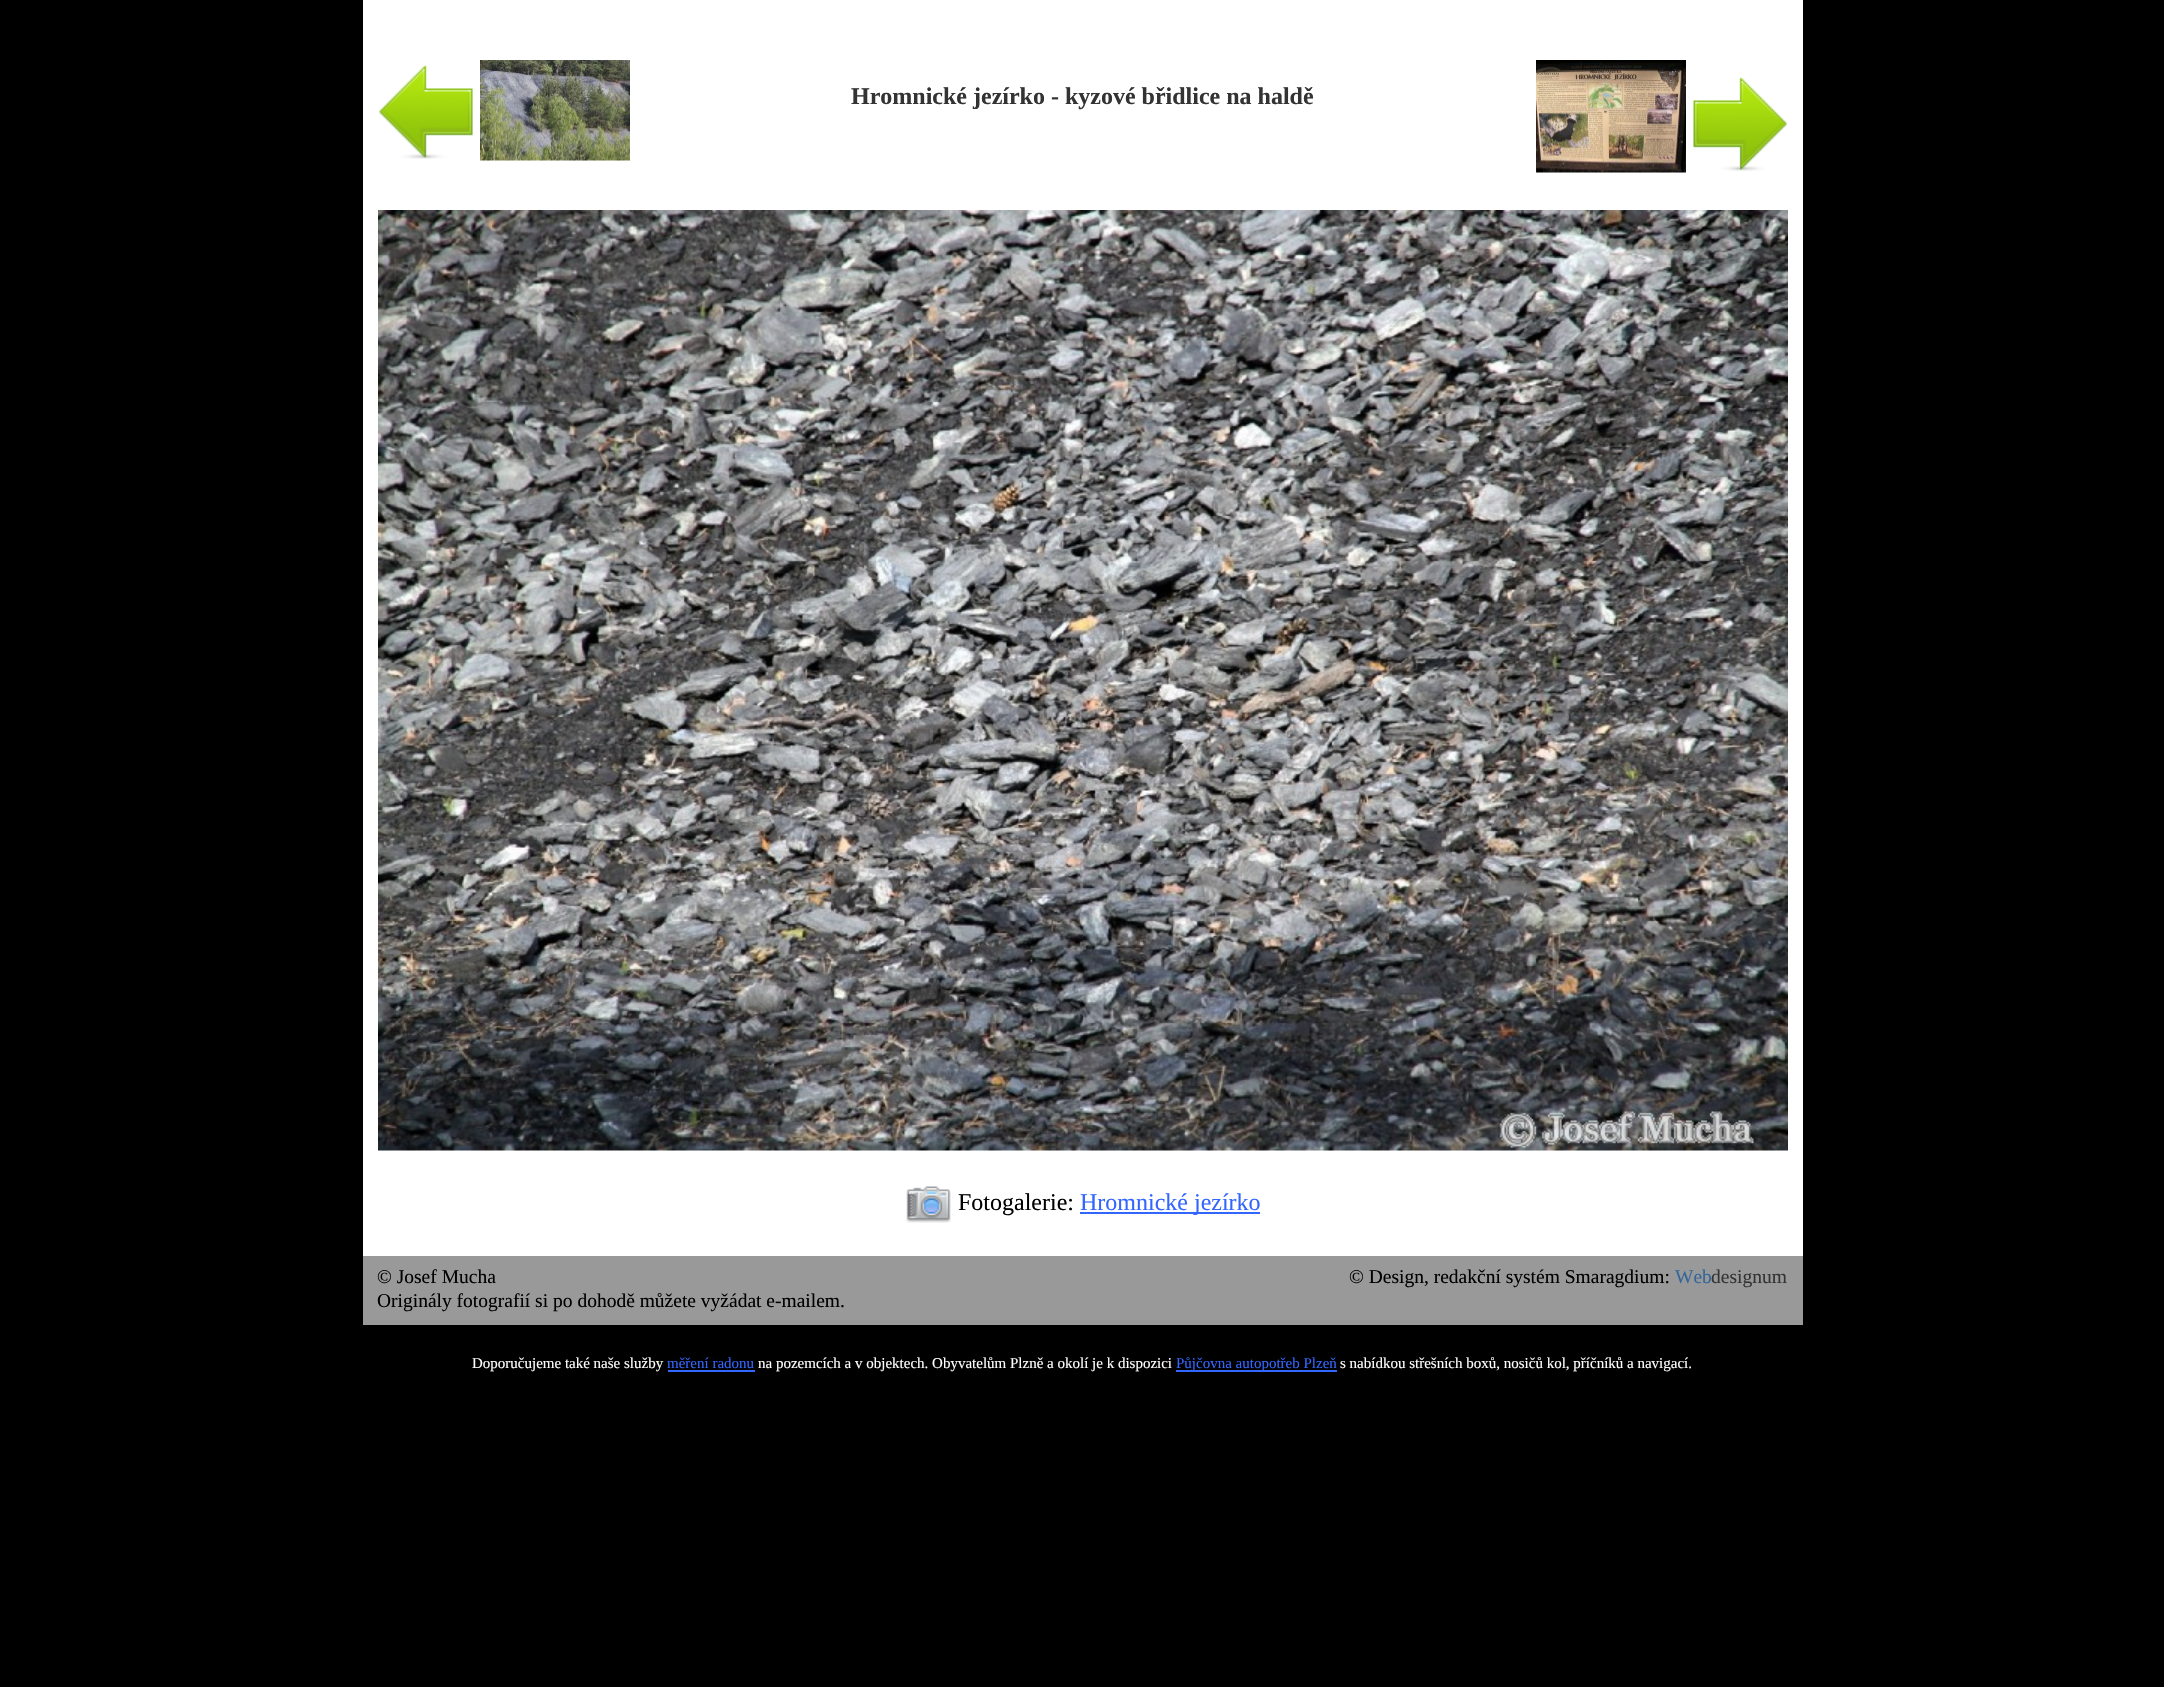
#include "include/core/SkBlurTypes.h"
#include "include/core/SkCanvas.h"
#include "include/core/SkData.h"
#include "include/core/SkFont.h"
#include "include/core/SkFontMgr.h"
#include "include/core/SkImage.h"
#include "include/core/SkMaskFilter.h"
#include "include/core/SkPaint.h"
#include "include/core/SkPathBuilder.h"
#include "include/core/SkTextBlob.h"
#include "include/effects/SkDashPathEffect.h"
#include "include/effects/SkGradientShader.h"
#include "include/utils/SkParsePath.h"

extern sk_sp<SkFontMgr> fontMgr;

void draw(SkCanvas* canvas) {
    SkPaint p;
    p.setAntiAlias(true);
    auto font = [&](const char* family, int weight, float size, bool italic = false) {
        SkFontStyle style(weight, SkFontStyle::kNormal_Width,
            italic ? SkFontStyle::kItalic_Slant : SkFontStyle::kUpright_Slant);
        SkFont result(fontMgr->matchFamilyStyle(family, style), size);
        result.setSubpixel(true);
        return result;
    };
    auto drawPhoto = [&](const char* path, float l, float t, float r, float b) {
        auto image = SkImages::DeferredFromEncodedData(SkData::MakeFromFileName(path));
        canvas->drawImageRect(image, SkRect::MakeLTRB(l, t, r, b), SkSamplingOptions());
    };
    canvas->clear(0xFF000000);
    p.setColor(0xFFFFFFFF);
    canvas->drawRect(SkRect::MakeLTRB(363, 0, 1803, 1256), p);
    drawPhoto("media/1.png", 379, 65, 473, 159);
    drawPhoto("media/2.png", 480, 60, 630, 161);
    auto font1 = font("Liberation Serif", 700, 24);
    p.setColor(0xFF333333);
    canvas->drawString("Hromnické jezírko - kyzové břidlice na haldě", 851, 104, font1, p);
    drawPhoto("media/3.png", 1536, 60, 1686, 173);
    drawPhoto("media/4.png", 1693, 77, 1787, 171);
    drawPhoto("media/5.png", 378, 210, 1788, 1151);
    drawPhoto("media/6.png", 906, 1186, 951, 1223);
    auto font2 = font("Liberation Serif", 400, 24);
    p.setColor(0xFF000000);
    canvas->drawString("Fotogalerie:", 958, 1210, font2, p);
    p.setColor(0xFF3366FF);
    canvas->drawRect(SkRect::MakeLTRB(1080, 1212, 1260, 1214), p);
    canvas->drawString("Hromnické jezírko", 1080, 1210, font2, p);
    p.setColor(0xFF999999);
    canvas->drawRect(SkRect::MakeLTRB(363, 1256, 1803, 1325), p);
    auto font3 = font("Liberation Serif", 400, 19.5f);
    p.setColor(0xFF000000);
    {
        const struct { const char* s; float x, y; } items[] = {
            {"© Josef Mucha", 377, 1283},
            {"Originály fotografií si po dohodě můžete vyžádat e-mailem.", 377, 1307},
            {"© Design, redakční systém Smaragdium:", 1349, 1283},
        };
        for (auto [s, x, y] : items) {
            canvas->drawString(s, x, y, font3, p);
        }
    }
    p.setColor(0xFF336699);
    canvas->drawString("Web", 1675, 1283, font3, p);
    p.setColor(0xFF333333);
    canvas->drawString("designum", 1711, 1283, font3, p);
    auto font4 = font("Liberation Serif", 400, 15);
    p.setColor(0xFFFFFFFF);
    canvas->drawString("Doporučujeme také naše služby", 472, 1368, font4, p);
    p.setColor(0xFF3366FF);
    canvas->drawString("měření radonu", 667, 1368, font4, p);
    canvas->drawRect(SkRect::MakeLTRB(668, 1370, 755, 1372), p);
    p.setColor(0xFFFFFFFF);
    canvas->drawString("na pozemcích a v objektech. Obyvatelům Plzně a okolí je k dispozici", 758, 1368, font4, p);
    p.setColor(0xFF3366FF);
    canvas->drawRect(SkRect::MakeLTRB(1176, 1370, 1337, 1372), p);
    canvas->drawString("Půjčovna autopotřeb Plzeň", 1176, 1368, font4, p);
    p.setColor(0xFFFFFFFF);
    canvas->drawString("s nabídkou střešních boxů, nosičů kol, příčníků a navigací.", 1340, 1368, font4, p);
}
